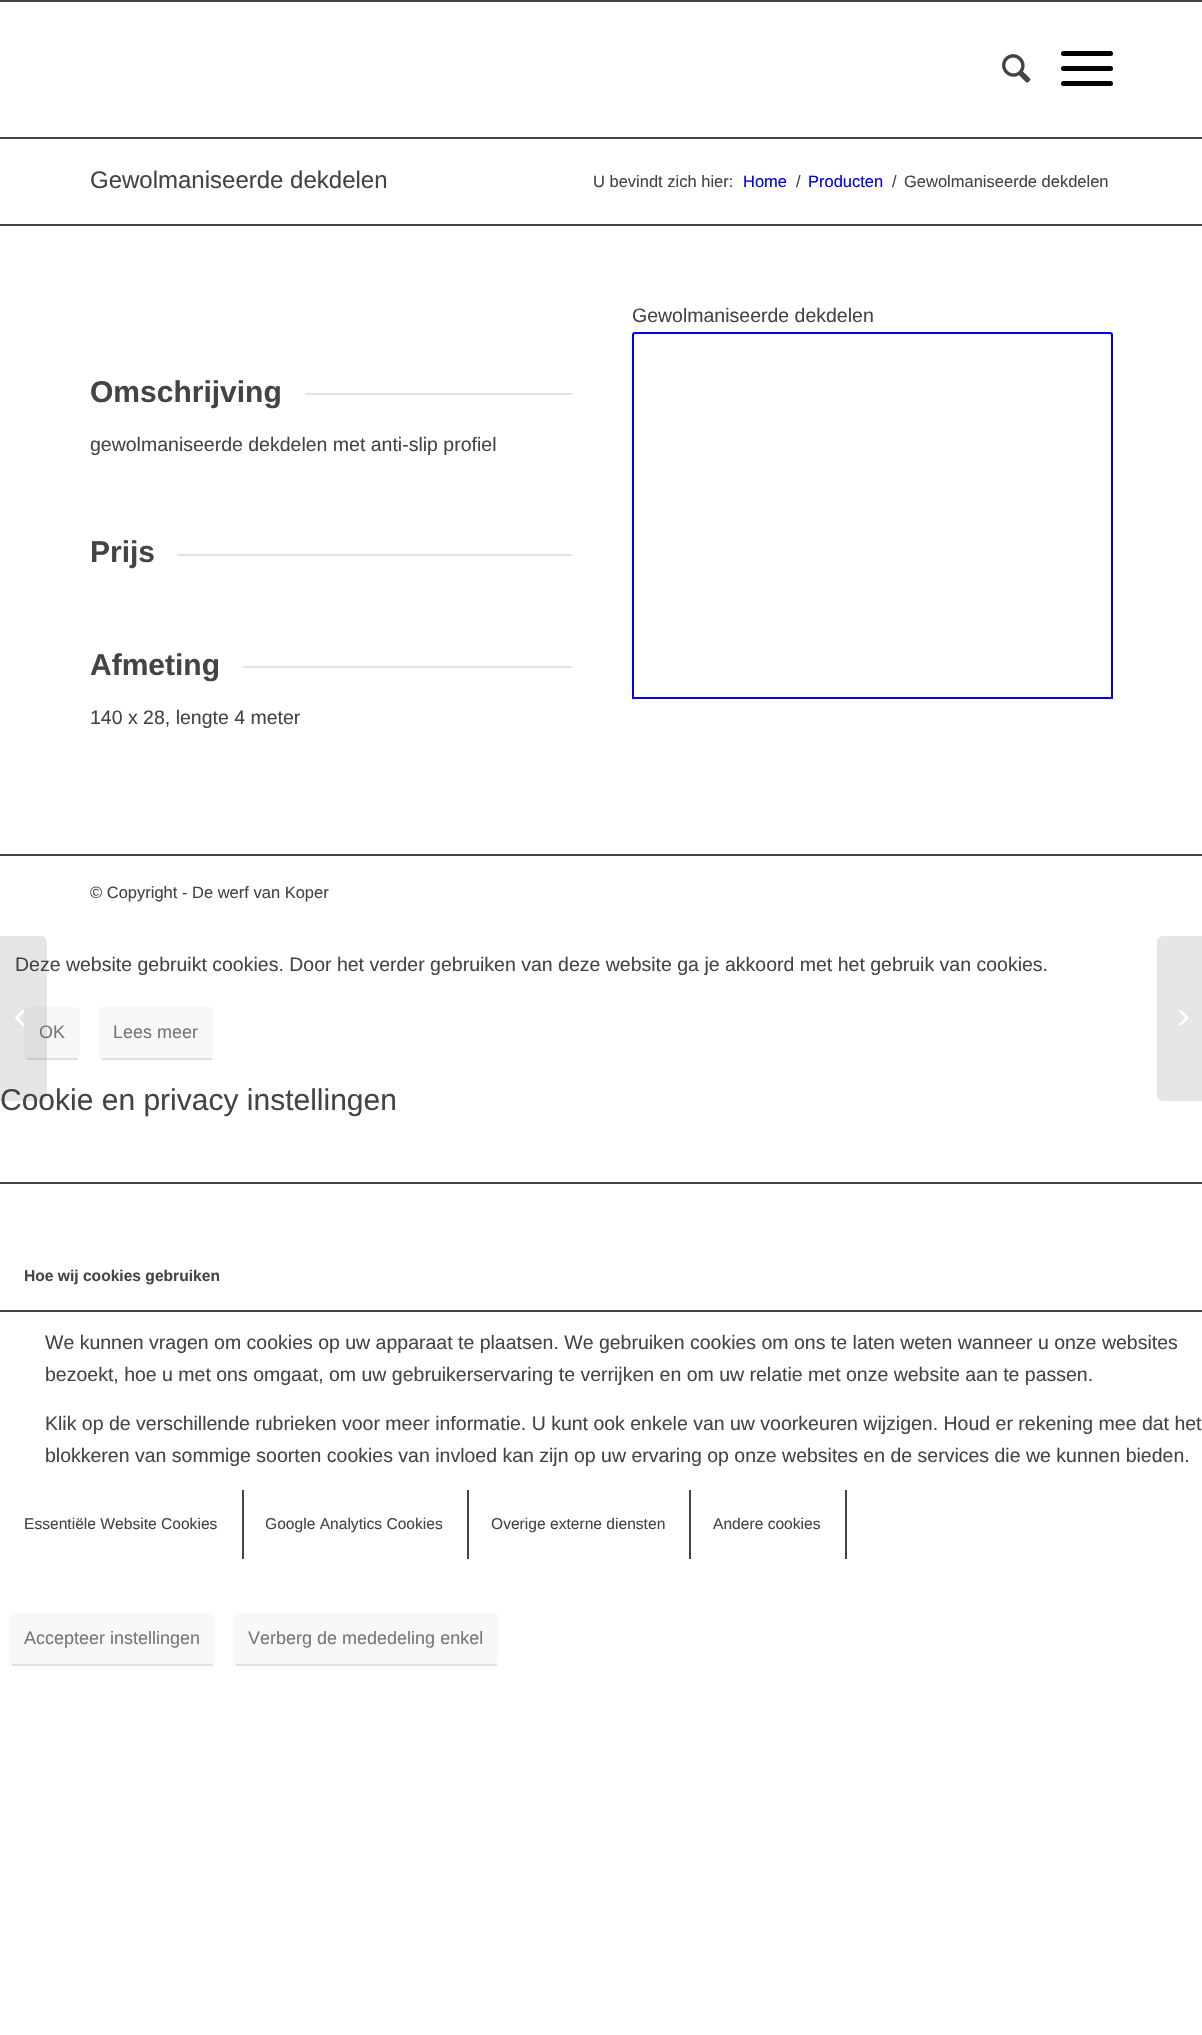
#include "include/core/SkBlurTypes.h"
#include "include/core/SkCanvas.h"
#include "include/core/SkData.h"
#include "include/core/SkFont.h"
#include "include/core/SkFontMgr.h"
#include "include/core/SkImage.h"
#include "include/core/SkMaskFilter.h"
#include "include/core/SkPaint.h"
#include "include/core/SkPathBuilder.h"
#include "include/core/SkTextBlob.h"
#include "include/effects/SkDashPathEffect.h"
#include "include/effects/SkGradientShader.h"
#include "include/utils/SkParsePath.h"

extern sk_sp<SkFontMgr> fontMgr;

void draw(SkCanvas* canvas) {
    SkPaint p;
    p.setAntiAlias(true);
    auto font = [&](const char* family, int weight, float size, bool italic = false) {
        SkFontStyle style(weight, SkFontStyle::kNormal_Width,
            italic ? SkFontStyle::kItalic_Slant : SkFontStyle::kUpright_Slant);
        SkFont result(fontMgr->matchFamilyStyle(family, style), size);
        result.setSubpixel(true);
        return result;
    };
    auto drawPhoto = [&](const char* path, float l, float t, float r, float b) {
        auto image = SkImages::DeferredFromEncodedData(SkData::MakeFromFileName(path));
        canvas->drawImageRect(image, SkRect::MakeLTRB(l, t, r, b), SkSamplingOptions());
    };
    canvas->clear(0xFFFFFFFF);
    p.setColor(0xFF444444);
    canvas->drawRect(SkRect::MakeLTRB(0, 0, 1202, 2), p);
    canvas->drawRect(SkRect::MakeLTRB(0, 137, 1202, 139), p);
    drawPhoto("media/1.png", 1002, 54, 1031, 83);
    p.setColor(0xFF000000);
    canvas->drawRoundRect(SkRect::MakeLTRB(1061, 66, 1113, 71), 2.5f, 2.5f, p);
    canvas->drawRoundRect(SkRect::MakeLTRB(1061, 51, 1113, 56), 2.5f, 2.5f, p);
    canvas->drawRoundRect(SkRect::MakeLTRB(1061, 81, 1113, 86), 2.5f, 2.5f, p);
    auto font1 = font("Liberation Sans", 400, 24);
    p.setColor(0xFF444444);
    canvas->drawString("Gewolmaniseerde dekdelen", 90, 188, font1, p);
    auto font2 = font("Liberation Sans", 400, 16.5f);
    canvas->drawString("U bevindt zich hier:", 593, 187, font2, p);
    p.setColor(0xFF0000EE);
    canvas->drawString("Home", 743, 187, font2, p);
    p.setColor(0xFF444444);
    canvas->drawString("/", 796, 187, font2, p);
    p.setColor(0xFF0000EE);
    canvas->drawString("Producten", 808, 187, font2, p);
    p.setColor(0xFF444444);
    canvas->drawString("/", 892, 187, font2, p);
    canvas->drawString("Gewolmaniseerde dekdelen", 904, 187, font2, p);
    canvas->drawRect(SkRect::MakeLTRB(0, 224, 1202, 226), p);
    auto font3 = font("Liberation Sans", 400, 19.5f);
    canvas->drawString("Gewolmaniseerde dekdelen", 632, 322, font3, p);
    p.setStyle(SkPaint::kStroke_Style);
    p.setStrokeWidth(2);
    p.setColor(0xFF0000EE);
    canvas->drawPath(SkPathBuilder().moveTo(635, 333).lineTo(1110, 333).cubicTo(1111, 333, 1112, 334, 1112, 335).lineTo(1112, 698).lineTo(633, 698).lineTo(633, 335).cubicTo(633, 334, 634, 333, 635, 333).close().detach(), p);
    auto font4 = font("Liberation Sans", 700, 30);
    p.setStyle(SkPaint::kFill_Style);
    p.setColor(0xFF444444);
    canvas->drawString("Omschrijving", 90, 402, font4, p);
    p.setColor(0xFFE3E3E3);
    canvas->drawRect(SkRect::MakeLTRB(305, 393, 572, 395), p);
    p.setColor(0xFF444444);
    canvas->drawString("gewolmaniseerde dekdelen met anti-slip profiel", 90, 451, font3, p);
    canvas->drawString("Prijs", 90, 562, font4, p);
    p.setColor(0xFFE3E3E3);
    canvas->drawRect(SkRect::MakeLTRB(177, 554, 572, 556), p);
    p.setColor(0xFF444444);
    canvas->drawString("Afmeting", 90, 675, font4, p);
    p.setColor(0xFFE3E3E3);
    canvas->drawRect(SkRect::MakeLTRB(243, 666, 572, 668), p);
    p.setColor(0xFF444444);
    canvas->drawString("140 x 28, lengte 4 meter", 90, 724, font3, p);
    canvas->drawRect(SkRect::MakeLTRB(0, 854, 1202, 856), p);
    canvas->drawString("© Copyright - De werf van Koper", 90, 898, font2, p);
    p.setColor(0xFFF8F8F8);
    canvas->drawRoundRect(SkRect::MakeLTRB(24, 1007, 80, 1059), 5, 5, p);
    p.setColor(0xFFE1E1E1);
    canvas->drawRect(SkRect::MakeLTRB(27, 1058, 78, 1060), p);
    p.setColor(0x1A000000);
    canvas->drawPath(SkPathBuilder().moveTo(0, 936).lineTo(41, 936).cubicTo(44.5f, 936, 47, 938.5f, 47, 942).lineTo(47, 1095).cubicTo(47, 1098.5f, 44.5f, 1101, 41, 1101).lineTo(0, 1101).close().detach(), p);
    drawPhoto("media/2.png", 15, 1009, 25, 1026);
    p.setColor(0xFFE6E6E6);
    canvas->drawPath(SkPathBuilder().moveTo(1163, 936).lineTo(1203, 936).lineTo(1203, 1101).lineTo(1163, 1101).cubicTo(1159.5f, 1101, 1157, 1098.5f, 1157, 1095).lineTo(1157, 942).cubicTo(1157, 938.5f, 1159.5f, 936, 1163, 936).close().detach(), p);
    drawPhoto("media/3.png", 1179, 1009, 1189, 1026);
    p.setColor(0xFF444444);
    canvas->drawString("Deze website gebruikt cookies. Door het verder gebruiken van deze website ga je akkoord met het gebruik van cookies.", 15, 971, font3, p);
    auto font5 = font("Liberation Sans", 400, 18);
    p.setColor(0xFF777777);
    canvas->drawString("OK", 39, 1038, font5, p);
    p.setColor(0xFFF8F8F8);
    canvas->drawRoundRect(SkRect::MakeLTRB(98, 1007, 213, 1059), 5, 5, p);
    p.setColor(0xFFE1E1E1);
    canvas->drawRect(SkRect::MakeLTRB(101, 1058, 212, 1060), p);
    p.setColor(0xFF777777);
    canvas->drawString("Lees meer", 113, 1038, font5, p);
    auto font6 = font("Liberation Sans", 400, 30);
    p.setColor(0xFF444444);
    canvas->drawString("Cookie en privacy instellingen", 0, 1110, font6, p);
    canvas->drawRect(SkRect::MakeLTRB(0, 1182, 1202, 1184), p);
    canvas->drawRect(SkRect::MakeLTRB(0, 1310, 1202, 1312), p);
    auto font7 = font("Liberation Sans", 700, 15.6f);
    canvas->drawString("Hoe wij cookies gebruiken", 24, 1281, font7, p);
    {
        const struct { const char* s; float x, y; } items[] = {
            {"We kunnen vragen om cookies op uw apparaat te plaatsen. We gebruiken cookies om ons te laten weten wanneer u onze websites", 45, 1349},
            {"bezoekt, hoe u met ons omgaat, om uw gebruikerservaring te verrijken en om uw relatie met onze website aan te passen.", 45, 1381},
            {"Klik op de verschillende rubrieken voor meer informatie. U kunt ook enkele van uw voorkeuren wijzigen. Houd er rekening mee dat het", 45, 1430},
            {"blokkeren van sommige soorten cookies van invloed kan zijn op uw ervaring op onze websites en de services die we kunnen bieden.", 45, 1462},
        };
        for (auto [s, x, y] : items) {
            canvas->drawString(s, x, y, font3, p);
        }
    }
    canvas->drawRect(SkRect::MakeLTRB(242, 1490, 244, 1559), p);
    auto font8 = font("Liberation Sans", 400, 15.6f);
    canvas->drawString("Essentiële Website Cookies", 24, 1529, font8, p);
    canvas->drawRect(SkRect::MakeLTRB(467, 1490, 469, 1559), p);
    canvas->drawString("Google Analytics Cookies", 265, 1529, font8, p);
    canvas->drawRect(SkRect::MakeLTRB(689, 1490, 691, 1559), p);
    canvas->drawString("Overige externe diensten", 491, 1529, font8, p);
    canvas->drawRect(SkRect::MakeLTRB(845, 1490, 847, 1559), p);
    canvas->drawString("Andere cookies", 713, 1529, font8, p);
    p.setColor(0xFFF8F8F8);
    canvas->drawRoundRect(SkRect::MakeLTRB(9, 1613, 215, 1665), 5, 5, p);
    p.setColor(0xFFE1E1E1);
    canvas->drawRect(SkRect::MakeLTRB(12, 1664, 213, 1666), p);
    p.setColor(0xFF777777);
    canvas->drawString("Accepteer instellingen", 24, 1644, font5, p);
    p.setColor(0xFFF8F8F8);
    canvas->drawRoundRect(SkRect::MakeLTRB(233, 1613, 498, 1665), 5, 5, p);
    p.setColor(0xFFE1E1E1);
    canvas->drawRect(SkRect::MakeLTRB(236, 1664, 497, 1666), p);
    p.setColor(0xFF777777);
    canvas->drawString("Verberg de mededeling enkel", 248, 1644, font5, p);
}
